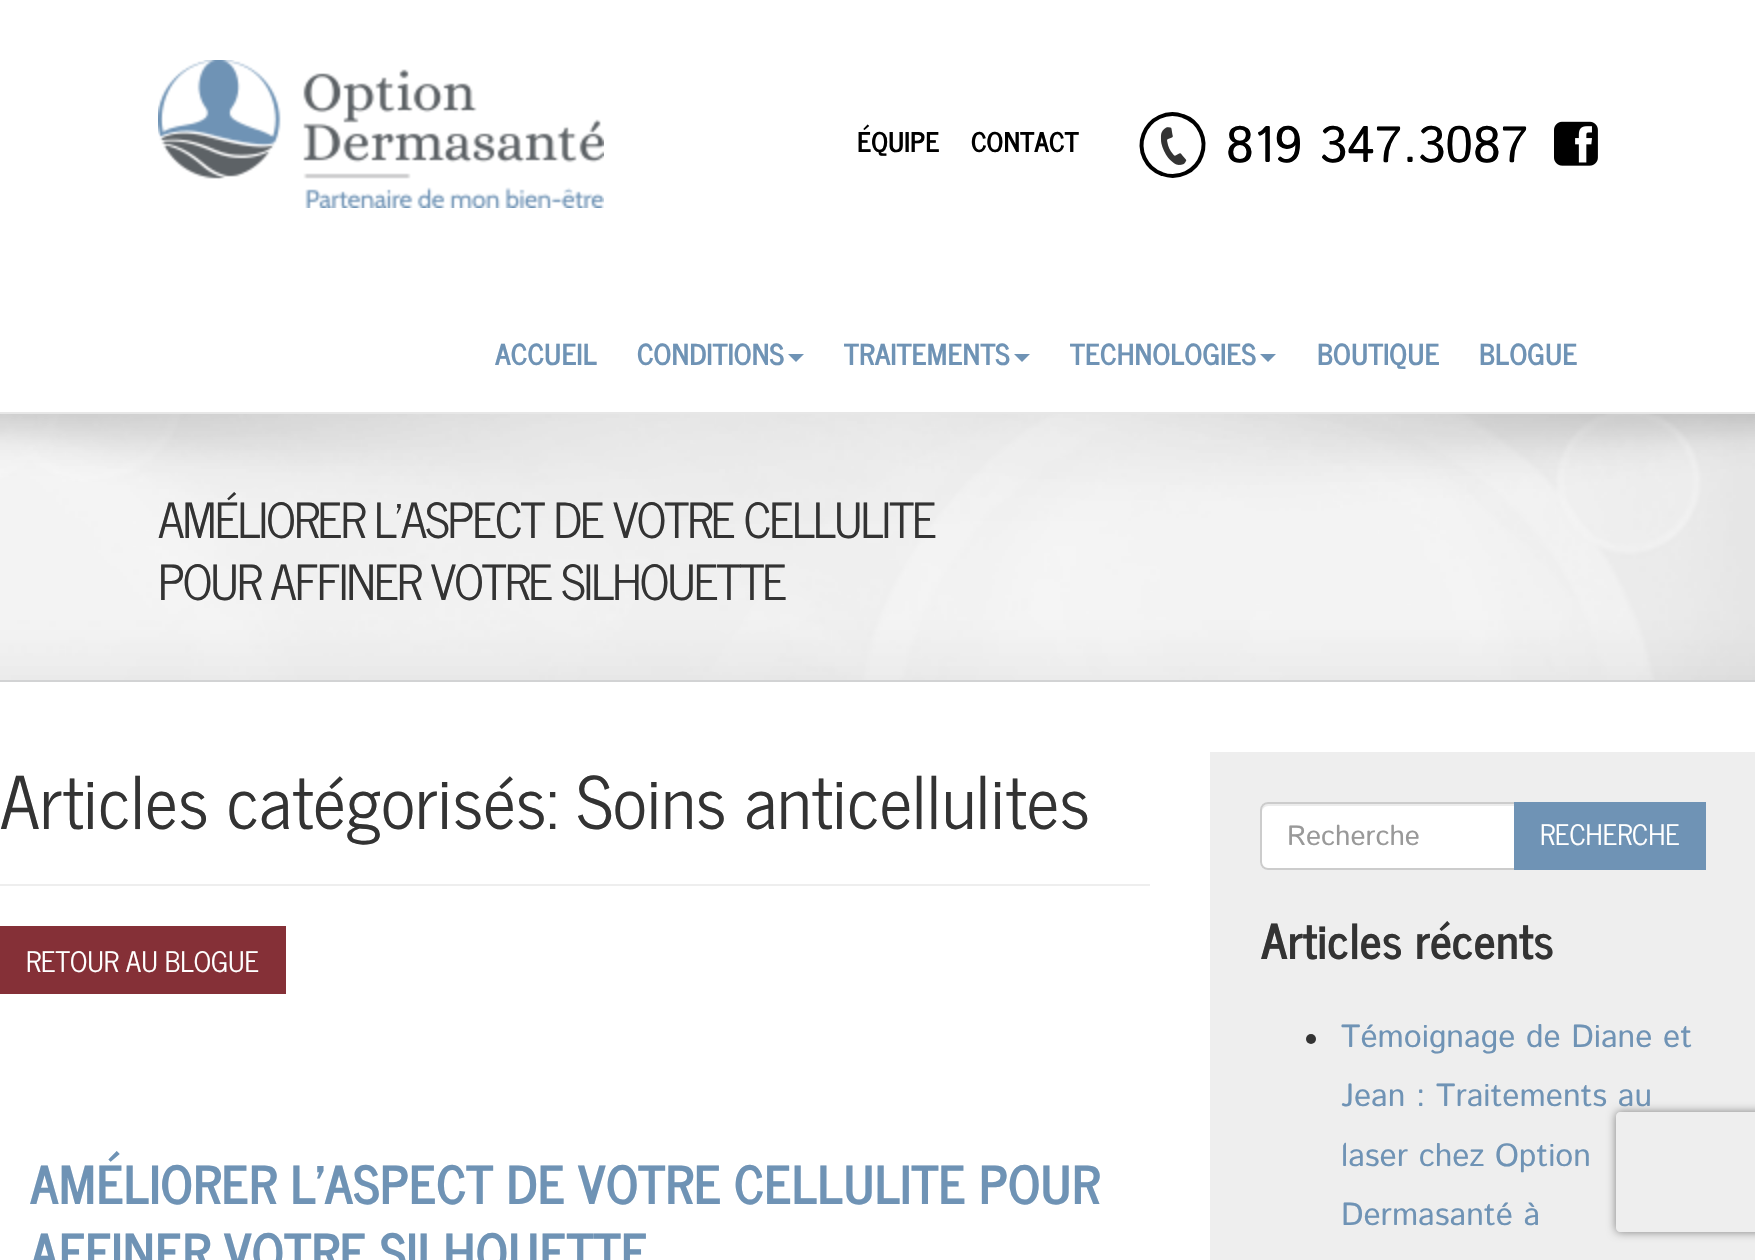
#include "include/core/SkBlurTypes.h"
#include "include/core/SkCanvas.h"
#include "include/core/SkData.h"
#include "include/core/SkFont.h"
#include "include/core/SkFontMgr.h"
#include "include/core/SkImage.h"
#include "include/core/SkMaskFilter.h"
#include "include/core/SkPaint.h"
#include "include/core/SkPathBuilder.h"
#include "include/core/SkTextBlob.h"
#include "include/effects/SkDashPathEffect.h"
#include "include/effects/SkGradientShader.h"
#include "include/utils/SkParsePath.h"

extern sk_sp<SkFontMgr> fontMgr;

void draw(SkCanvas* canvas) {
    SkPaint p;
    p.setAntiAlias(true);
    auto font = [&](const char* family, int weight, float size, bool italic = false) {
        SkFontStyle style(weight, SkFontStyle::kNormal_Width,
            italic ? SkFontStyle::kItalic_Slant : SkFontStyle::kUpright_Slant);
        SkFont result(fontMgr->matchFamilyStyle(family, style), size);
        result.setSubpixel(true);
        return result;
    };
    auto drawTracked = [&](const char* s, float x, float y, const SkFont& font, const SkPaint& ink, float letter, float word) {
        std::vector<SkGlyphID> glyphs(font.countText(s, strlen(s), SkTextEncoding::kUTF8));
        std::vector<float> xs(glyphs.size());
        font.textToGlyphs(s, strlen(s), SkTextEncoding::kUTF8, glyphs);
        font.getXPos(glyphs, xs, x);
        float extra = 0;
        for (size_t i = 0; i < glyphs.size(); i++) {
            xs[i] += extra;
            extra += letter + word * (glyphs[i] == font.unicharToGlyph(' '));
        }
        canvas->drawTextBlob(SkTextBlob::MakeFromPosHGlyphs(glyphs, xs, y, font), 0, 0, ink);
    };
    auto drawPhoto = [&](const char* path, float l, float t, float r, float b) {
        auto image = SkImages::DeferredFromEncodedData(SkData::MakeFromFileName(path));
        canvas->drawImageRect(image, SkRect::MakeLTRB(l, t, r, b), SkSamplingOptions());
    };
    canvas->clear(0xFFFFFFFF);
    p.setColor(0xFFE7E7E7);
    canvas->drawRect(SkRect::MakeLTRB(0, 412, 1755, 414), p);
    drawPhoto("media/1.png", 158, 60, 604, 208);
    auto font1 = font("News Cycle", 700, 27);
    p.setColor(0xFF000000);
    canvas->drawString("ÉQUIPE", 857, 152, font1, p);
    canvas->drawString("CONTACT", 971, 152, font1, p);
    p.setStyle(SkPaint::kStroke_Style);
    p.setStrokeWidth(4);
    canvas->drawPath(SkPathBuilder().moveTo(1183, 116).cubicTo(1199.5f, 121.5f, 1207.5f, 139.5f, 1201.5f, 155.5f).cubicTo(1196, 171.5f, 1178, 180, 1162, 174).cubicTo(1146, 168.5f, 1137.5f, 150.5f, 1143.5f, 134.5f).cubicTo(1149.5f, 118.5f, 1167, 110, 1183, 116).close().detach(), p);
    drawPhoto("media/2.png", 1160, 127, 1187, 165);
    auto font2 = font("Istok Web", 400, 51.25f);
    p.setStyle(SkPaint::kFill_Style);
    canvas->drawString("819 347.3087", 1226, 162, font2, p);
    drawPhoto("media/3.png", 1554, 121, 1598, 166);
    auto font3 = font("News Cycle", 700, 28.75f);
    p.setColor(0xFF6F93B5);
    canvas->drawString("ACCUEIL", 495, 365, font3, p);
    canvas->drawString("CONDITIONS", 637, 365, font3, p);
    canvas->drawPath(SkPathBuilder().moveTo(788, 354).lineTo(804, 354).lineTo(796, 362).close().detach(), p);
    canvas->drawString("TRAITEMENTS", 844, 365, font3, p);
    canvas->drawPath(SkPathBuilder().moveTo(1014, 354).lineTo(1030, 354).lineTo(1022, 362).close().detach(), p);
    canvas->drawString("TECHNOLOGIES", 1070, 365, font3, p);
    canvas->drawPath(SkPathBuilder().moveTo(1260, 354).lineTo(1276, 354).lineTo(1268, 362).close().detach(), p);
    canvas->drawString("BOUTIQUE", 1317, 365, font3, p);
    canvas->drawString("BLOGUE", 1479, 365, font3, p);
    p.setColor(0xFFF2F2F2);
    canvas->drawRect(SkRect::MakeLTRB(0, 414, 1755, 680), p);
    drawPhoto("media/4.png", 0, 414, 1755, 680);
    p.setColor(0xFFD2D3D4);
    canvas->drawRect(SkRect::MakeLTRB(0, 680, 1755, 682), p);
    auto font4 = font("News Cycle", 400, 48);
    p.setColor(0xFF333333);
    drawTracked("AMÉLIORER L’ASPECT DE VOTRE CELLULITE", 158, 538, font4, p, -2, 0);
    drawTracked("POUR AFFINER VOTRE SILHOUETTE", 158, 600, font4, p, -2, 0);
    p.setColor(0xFFEEEEEE);
    canvas->drawRect(SkRect::MakeLTRB(0, 884, 1150, 886), p);
    auto font5 = font("News Cycle", 400, 72);
    p.setColor(0xFF333333);
    canvas->drawString("Articles catégorisés: Soins anticellulites", 0, 829, font5, p);
    p.setColor(0xFF853037);
    canvas->drawRect(SkRect::MakeLTRB(0, 926, 286, 994), p);
    auto font6 = font("News Cycle", 400, 28);
    p.setColor(0xFFFFFFFF);
    canvas->drawString("RETOUR AU BLOGUE", 26, 972, font6, p);
    auto font7 = font("News Cycle", 700, 52);
    p.setColor(0xFF6F93B5);
    canvas->drawString("AMÉLIORER L’ASPECT DE VOTRE CELLULITE POUR", 30, 1204, font7, p);
    canvas->drawString("AFFINER VOTRE SILHOUETTE", 30, 1272, font7, p);
    p.setColor(0xFFEEEEEE);
    canvas->drawRect(SkRect::MakeLTRB(1210, 752, 1755, 1260), p);
    p.setColor(0xFFFFFFFF);
    canvas->drawPath(SkPathBuilder().moveTo(1268, 802).lineTo(1516, 802).lineTo(1516, 870).lineTo(1268, 870).cubicTo(1263.5f, 870, 1260, 866.5f, 1260, 862).lineTo(1260, 810).cubicTo(1260, 805.5f, 1263.5f, 802, 1268, 802).close().detach(), p);
    p.setColor(0xFFECECEC);
    canvas->drawPath(SkPathBuilder().moveTo(1268, 806).lineTo(1514, 806).lineTo(1514, 804).lineTo(1268, 804).cubicTo(1263, 804, 1262, 808, 1262, 812).cubicTo(1262, 809, 1265, 806, 1268, 806).close().detach(), p);
    p.setStyle(SkPaint::kStroke_Style);
    p.setStrokeWidth(2);
    p.setColor(0xFFCCCCCC);
    canvas->drawPath(SkPathBuilder().moveTo(1268, 803).lineTo(1515, 803).lineTo(1515, 869).lineTo(1268, 869).cubicTo(1264, 869, 1261, 866, 1261, 862).lineTo(1261, 810).cubicTo(1261, 806, 1264, 803, 1268, 803).close().detach(), p);
    auto font8 = font("Istok Web", 400, 28);
    p.setStyle(SkPaint::kFill_Style);
    p.setColor(0xFF999999);
    canvas->drawString("Recherche", 1287, 845, font8, p);
    p.setColor(0xFF6F93B5);
    canvas->drawRect(SkRect::MakeLTRB(1514, 802, 1706, 870), p);
    p.setColor(0xFFFFFFFF);
    canvas->drawString("RECHERCHE", 1540, 845, font6, p);
    auto font9 = font("News Cycle", 700, 48);
    p.setColor(0xFF333333);
    canvas->drawString("Articles récents", 1261, 959, font9, p);
    canvas->drawCircle(1311, 1039, 5, p);
    auto font10 = font("Istok Web", 400, 32);
    p.setColor(0xFF6F93B5);
    {
        const struct { const char* s; float x, y; } items[] = {
            {"Témoignage de Diane et", 1341, 1047},
            {"Jean : Traitements au", 1341, 1106},
            {"laser chez Option", 1341, 1166},
            {"Dermasanté à", 1341, 1225},
        };
        for (auto [s, x, y] : items) {
            canvas->drawString(s, x, y, font10, p);
        }
    }
    canvas->save();
    canvas->clipPath(SkPathBuilder(SkPathFillType::kEvenOdd).moveTo(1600, 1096).lineTo(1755, 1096).lineTo(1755, 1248).lineTo(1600, 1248).close().moveTo(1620, 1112).lineTo(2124, 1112).cubicTo(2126, 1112, 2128, 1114, 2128, 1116).lineTo(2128, 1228).cubicTo(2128, 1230, 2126, 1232, 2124, 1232).lineTo(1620, 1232).cubicTo(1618, 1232, 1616, 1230, 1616, 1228).lineTo(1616, 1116).cubicTo(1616, 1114, 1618, 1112, 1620, 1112).close().detach(), true);
    p.setColor(0xFF808080);
    p.setMaskFilter(SkMaskFilter::MakeBlur(kNormal_SkBlurStyle, 5));
    canvas->drawRoundRect(SkRect::MakeLTRB(1616, 1112, 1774, 1232), 4, 4, p);
    p.setMaskFilter(nullptr);
    canvas->restore();
}
